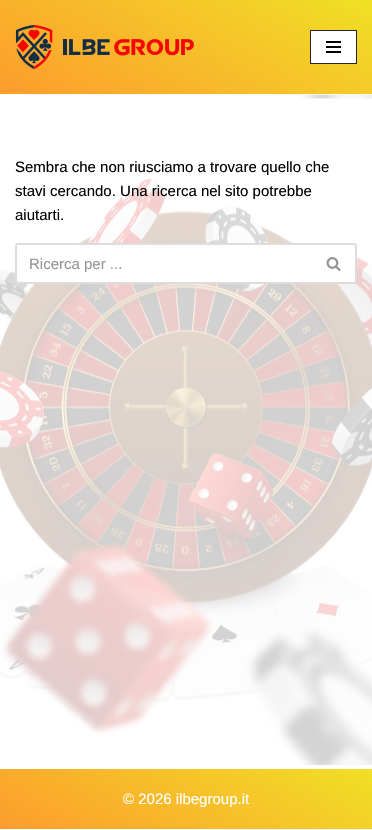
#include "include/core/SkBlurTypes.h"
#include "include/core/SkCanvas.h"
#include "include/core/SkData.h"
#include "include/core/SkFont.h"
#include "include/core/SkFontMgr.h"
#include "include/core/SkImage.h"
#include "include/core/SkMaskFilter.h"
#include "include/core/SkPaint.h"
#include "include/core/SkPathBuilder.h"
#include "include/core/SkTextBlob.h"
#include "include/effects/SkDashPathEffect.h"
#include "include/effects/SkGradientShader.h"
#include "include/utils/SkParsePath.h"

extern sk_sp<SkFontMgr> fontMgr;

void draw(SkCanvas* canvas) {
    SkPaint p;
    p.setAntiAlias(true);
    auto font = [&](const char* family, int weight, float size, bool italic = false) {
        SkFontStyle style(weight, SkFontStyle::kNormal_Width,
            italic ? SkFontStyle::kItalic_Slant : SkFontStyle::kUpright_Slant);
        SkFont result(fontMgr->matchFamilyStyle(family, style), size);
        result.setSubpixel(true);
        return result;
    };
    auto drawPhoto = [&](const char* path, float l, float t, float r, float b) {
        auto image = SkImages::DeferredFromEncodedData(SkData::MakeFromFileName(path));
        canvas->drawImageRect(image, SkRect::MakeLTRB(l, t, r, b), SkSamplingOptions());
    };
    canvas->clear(0xFFFFFFFF);
    {
        const SkColor colors[] = {0xFFF0E026, 0xFFFD9C2D};
        const float stops[] = {0, 1};
        const SkPoint ends[] = {{250, -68}, {122, 162}};
        p.setShader(SkGradientShader::MakeLinear(ends, colors, stops, 2, SkTileMode::kClamp));
        p.setAlpha(255);
    }
    canvas->drawRect(SkRect::MakeLTRB(0, 0, 372, 94), p);
    drawPhoto("media/1.png", 15, 24, 194, 70);
    p.setShader(nullptr);
    p.setColor(0xFFFFFFFF);
    canvas->drawRect(SkRect::MakeLTRB(310.5f, 30.5f, 356.5f, 63.5f), p);
    p.setStyle(SkPaint::kStroke_Style);
    p.setStrokeWidth(1);
    p.setColor(0xFF272626);
    canvas->drawRect(SkRect::MakeLTRB(310.5f, 30.5f, 356.5f, 63.5f), p);
    p.setStyle(SkPaint::kFill_Style);
    {
        const struct { float l, t, r, b; SkColor color; } items[] = {
            {326, 41, 341, 43, 0xFF000000},
            {326, 46, 341, 48, 0xFF000000},
            {326, 51, 341, 53, 0xFF000000},
        };
        for (auto [l, t, r, b, color] : items) {
            p.setColor(color);
            canvas->drawRect(SkRect::MakeLTRB(l, t, r, b), p);
        }
    }
    drawPhoto("media/2.png", 0, 95, 372, 769);
    auto font1 = font("Liberation Sans", 400, 15);
    {
        const struct { const char* s; float x, y; } items[] = {
            {"Sembra che non riusciamo a trovare quello che", 15, 172},
            {"stavi cercando. Una ricerca nel sito potrebbe", 15, 196},
            {"aiutarti.", 15, 220},
        };
        for (auto [s, x, y] : items) {
            canvas->drawString(s, x, y, font1, p);
        }
    }
    p.setColor(0xFFFFFFFF);
    canvas->drawPath(SkPathBuilder().moveTo(18, 243).lineTo(312, 243).lineTo(312, 284).lineTo(18, 284).cubicTo(16.5f, 284, 15, 282.5f, 15, 281).lineTo(15, 246).cubicTo(15, 244.5f, 16.5f, 243, 18, 243).close().detach(), p);
    p.setColor(0xFFDDDDDD);
    canvas->drawPath(SkPathBuilder(SkPathFillType::kEvenOdd).moveTo(18, 243).lineTo(312, 243).lineTo(312, 284).lineTo(18, 284).cubicTo(16, 284, 15, 283, 15, 281).lineTo(15, 246).cubicTo(15, 244, 16, 243, 18, 243).close().moveTo(18, 245).lineTo(312, 245).lineTo(312, 282).lineTo(18, 282).lineTo(17, 281).lineTo(17, 245).close().detach(), p);
    p.setColor(0xFF939393);
    canvas->drawString("Ricerca per ...", 29, 269, font1, p);
    p.setColor(0xFFFFFFFF);
    canvas->drawPath(SkPathBuilder().moveTo(312, 243).lineTo(354, 243).cubicTo(355.5f, 243, 357, 244.5f, 357, 246).lineTo(357, 281).cubicTo(357, 282.5f, 355.5f, 284, 354, 284).lineTo(312, 284).close().detach(), p);
    p.setColor(0xFFDDDDDD);
    canvas->drawPath(SkPathBuilder(SkPathFillType::kEvenOdd).moveTo(312, 243).lineTo(354, 243).cubicTo(356, 243, 357, 244, 357, 246).lineTo(357, 281).cubicTo(357, 283, 356, 284, 354, 284).lineTo(312, 284).close().moveTo(312, 245).lineTo(354, 245).cubicTo(355, 245, 355, 245, 355, 246).lineTo(355, 281).cubicTo(355, 282, 355, 282, 354, 282).lineTo(312, 282).close().detach(), p);
    drawPhoto("media/3.png", 326, 257, 341, 271);
    {
        const SkColor colors[] = {0xFFF0E026, 0xFFFD9C2D};
        const float stops[] = {0, 1};
        const SkPoint ends[] = {{242, 697}, {130, 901}};
        p.setShader(SkGradientShader::MakeLinear(ends, colors, stops, 2, SkTileMode::kClamp));
        p.setAlpha(255);
    }
    canvas->drawRect(SkRect::MakeLTRB(0, 769, 372, 829), p);
    p.setShader(nullptr);
    p.setColor(0xFFFFFFFF);
    canvas->drawString("© 2026 ilbegroup.it", 123, 804, font1, p);
}
